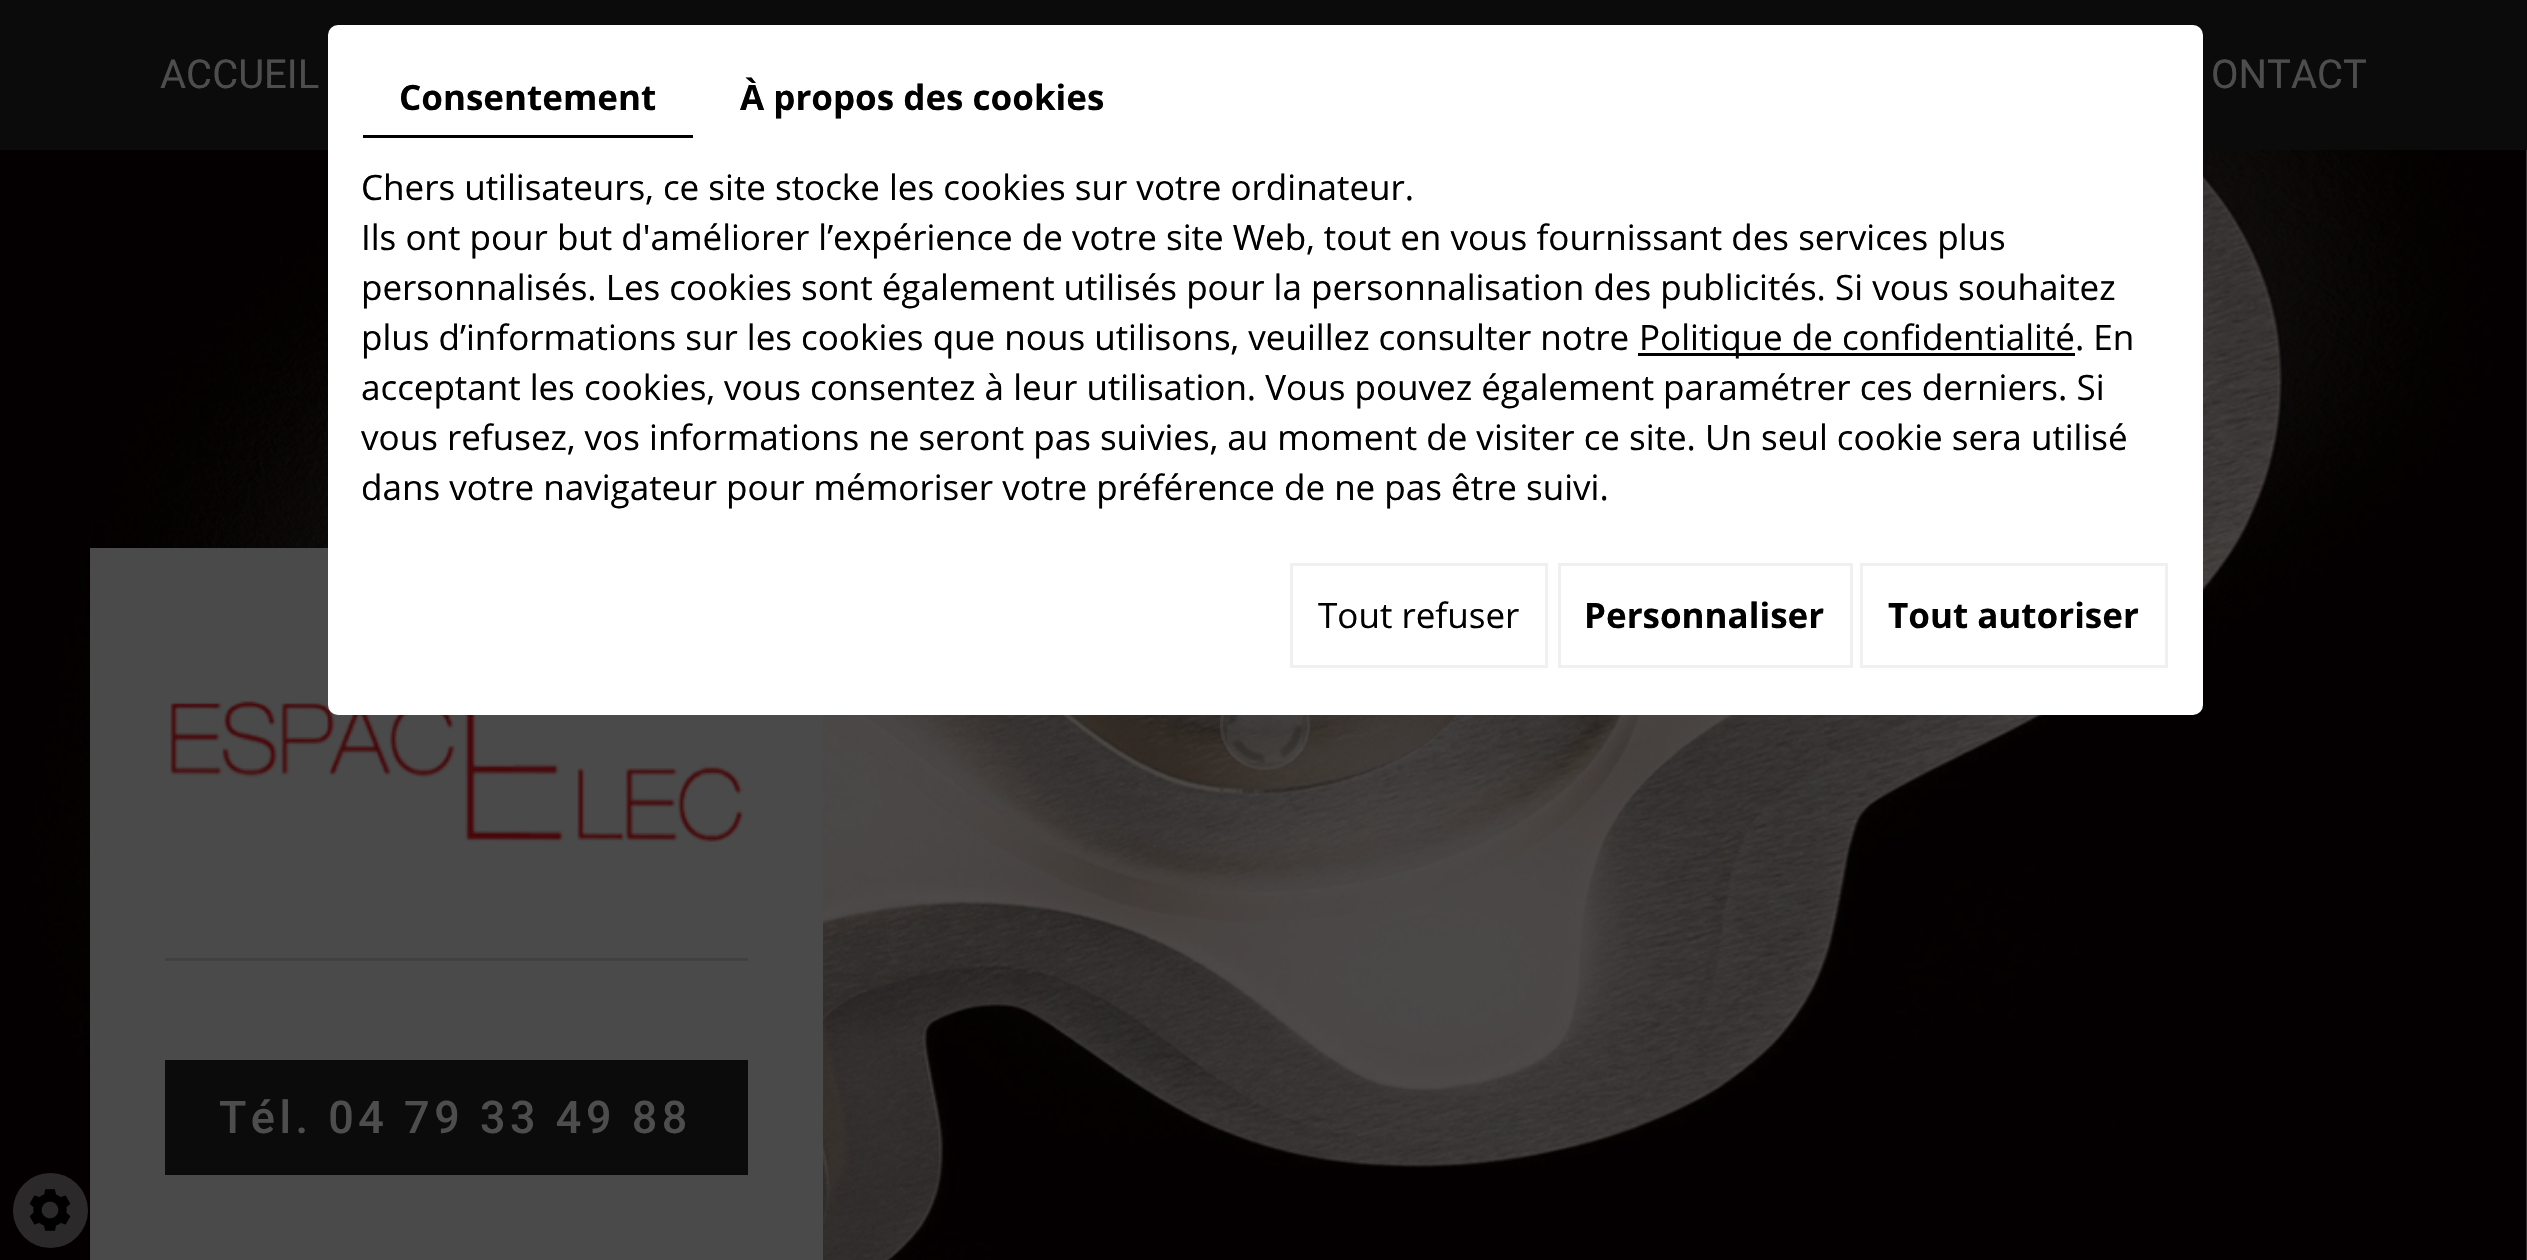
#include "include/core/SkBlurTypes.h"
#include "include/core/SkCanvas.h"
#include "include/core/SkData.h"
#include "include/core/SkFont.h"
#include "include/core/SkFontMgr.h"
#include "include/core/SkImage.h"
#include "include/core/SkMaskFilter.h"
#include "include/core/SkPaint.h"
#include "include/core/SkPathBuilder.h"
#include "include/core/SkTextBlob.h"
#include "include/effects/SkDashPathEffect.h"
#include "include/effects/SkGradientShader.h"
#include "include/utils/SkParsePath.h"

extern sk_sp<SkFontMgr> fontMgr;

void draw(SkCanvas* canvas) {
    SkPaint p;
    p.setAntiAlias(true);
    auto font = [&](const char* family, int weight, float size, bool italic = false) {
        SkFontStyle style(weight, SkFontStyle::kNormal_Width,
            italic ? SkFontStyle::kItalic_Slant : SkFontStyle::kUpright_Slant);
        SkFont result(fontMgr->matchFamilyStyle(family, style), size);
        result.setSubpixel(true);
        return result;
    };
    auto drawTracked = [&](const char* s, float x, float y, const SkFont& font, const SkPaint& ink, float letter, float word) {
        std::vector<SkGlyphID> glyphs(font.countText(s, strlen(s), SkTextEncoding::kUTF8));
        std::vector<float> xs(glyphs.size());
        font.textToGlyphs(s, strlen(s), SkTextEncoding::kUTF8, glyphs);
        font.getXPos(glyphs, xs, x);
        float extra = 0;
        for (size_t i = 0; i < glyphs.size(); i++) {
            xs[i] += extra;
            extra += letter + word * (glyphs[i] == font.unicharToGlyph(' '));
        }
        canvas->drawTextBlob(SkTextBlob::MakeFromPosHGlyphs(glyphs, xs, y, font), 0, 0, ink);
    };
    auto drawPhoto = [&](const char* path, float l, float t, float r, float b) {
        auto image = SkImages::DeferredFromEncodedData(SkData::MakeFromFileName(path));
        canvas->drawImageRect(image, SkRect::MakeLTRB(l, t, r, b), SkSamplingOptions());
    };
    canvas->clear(0xFFFFFFFF);
    p.setColor(0xFF0B0B0B);
    canvas->drawRect(SkRect::MakeLTRB(0, 0, 2527, 150), p);
    auto font1 = font("Roboto", 400, 40);
    p.setColor(0xFF4D4D4D);
    canvas->drawString("ACCUEIL", 160, 88, font1, p);
    canvas->drawString("ONTACT", 2211, 88, font1, p);
    drawPhoto("media/1.png", 0, 150, 2527, 1260);
    p.setColor(0x3D4D4D4D);
    canvas->drawCircle(1265, 725, 45, p);
    drawPhoto("media/2.png", 1227, 715, 1303, 763);
    p.setStyle(SkPaint::kStroke_Style);
    p.setStrokeWidth(3);
    p.setColor(0x454D4D4D);
    canvas->drawCircle(1265, 725, 43.5f, p);
    p.setStyle(SkPaint::kFill_Style);
    p.setColor(0xFF4A4A4A);
    canvas->drawRect(SkRect::MakeLTRB(90, 548, 823, 1260), p);
    p.setColor(0xFF414141);
    canvas->drawRect(SkRect::MakeLTRB(165, 958, 748, 961), p);
    drawPhoto("media/3.png", 170, 699, 744, 843);
    p.setColor(0xFF0B0B0B);
    canvas->drawRect(SkRect::MakeLTRB(165, 1060, 748, 1175), p);
    auto font2 = font("Roboto", 500, 45);
    p.setColor(0xFF4D4D4D);
    drawTracked("Tél. 04 79 33 49 88", 219, 1133, font2, p, 4.5f, 0);
    p.setColor(0xFFFFFFFF);
    canvas->drawRoundRect(SkRect::MakeLTRB(328, 25, 2203, 715), 10, 10, p);
    p.setColor(0xFF000000);
    canvas->drawRect(SkRect::MakeLTRB(363, 135, 693, 138), p);
    auto font3 = font("Open Sans", 700, 35);
    canvas->drawString("Consentement", 399, 110, font3, p);
    canvas->drawString("À propos des cookies", 740, 110, font3, p);
    auto font4 = font("Open Sans", 400, 35);
    {
        const struct { const char* s; float x, y; } items[] = {
            {"Chers utilisateurs, ce site stocke les cookies sur votre ordinateur.", 361, 200},
            {"Ils ont pour but d'améliorer l’expérience de votre site Web, tout en vous fournissant des services plus", 361, 250},
            {"personnalisés. Les cookies sont également utilisés pour la personnalisation des publicités. Si vous souhaitez", 361, 300},
            {"plus d’informations sur les cookies que nous utilisons, veuillez consulter notre", 361, 350},
        };
        for (auto [s, x, y] : items) {
            canvas->drawString(s, x, y, font4, p);
        }
    }
    canvas->drawRect(SkRect::MakeLTRB(1638, 353, 2075, 356), p);
    {
        const struct { const char* s; float x, y; } items[] = {
            {"Politique de confidentialité. En", 1639, 350},
            {"acceptant les cookies, vous consentez à leur utilisation. Vous pouvez également paramétrer ces derniers. Si", 361, 400},
            {"vous refusez, vos informations ne seront pas suivies, au moment de visiter ce site. Un seul cookie sera utilisé", 361, 450},
            {"dans votre navigateur pour mémoriser votre préférence de ne pas être suivi.", 361, 500},
        };
        for (auto [s, x, y] : items) {
            canvas->drawString(s, x, y, font4, p);
        }
    }
    p.setStyle(SkPaint::kStroke_Style);
    p.setColor(0xFFF0F0F0);
    canvas->drawRect(SkRect::MakeLTRB(1291.5f, 564.5f, 1546.5f, 666.5f), p);
    p.setStyle(SkPaint::kFill_Style);
    p.setColor(0xFF000000);
    canvas->drawString("Tout refuser", 1318, 628, font4, p);
    p.setStyle(SkPaint::kStroke_Style);
    p.setColor(0xFFF0F0F0);
    canvas->drawRect(SkRect::MakeLTRB(1559.5f, 564.5f, 1851.5f, 666.5f), p);
    p.setStyle(SkPaint::kFill_Style);
    p.setColor(0xFF000000);
    canvas->drawString("Personnaliser", 1584, 628, font3, p);
    p.setStyle(SkPaint::kStroke_Style);
    p.setColor(0xFFF0F0F0);
    canvas->drawRect(SkRect::MakeLTRB(1861.5f, 564.5f, 2166.5f, 666.5f), p);
    p.setStyle(SkPaint::kFill_Style);
    p.setColor(0xFF000000);
    canvas->drawString("Tout autoriser", 1888, 628, font3, p);
    p.setColor(0xFF2B292A);
    canvas->drawCircle(50.5f, 1210.5f, 37.5f, p);
    drawPhoto("media/4.png", 29, 1189, 71, 1231);
}
